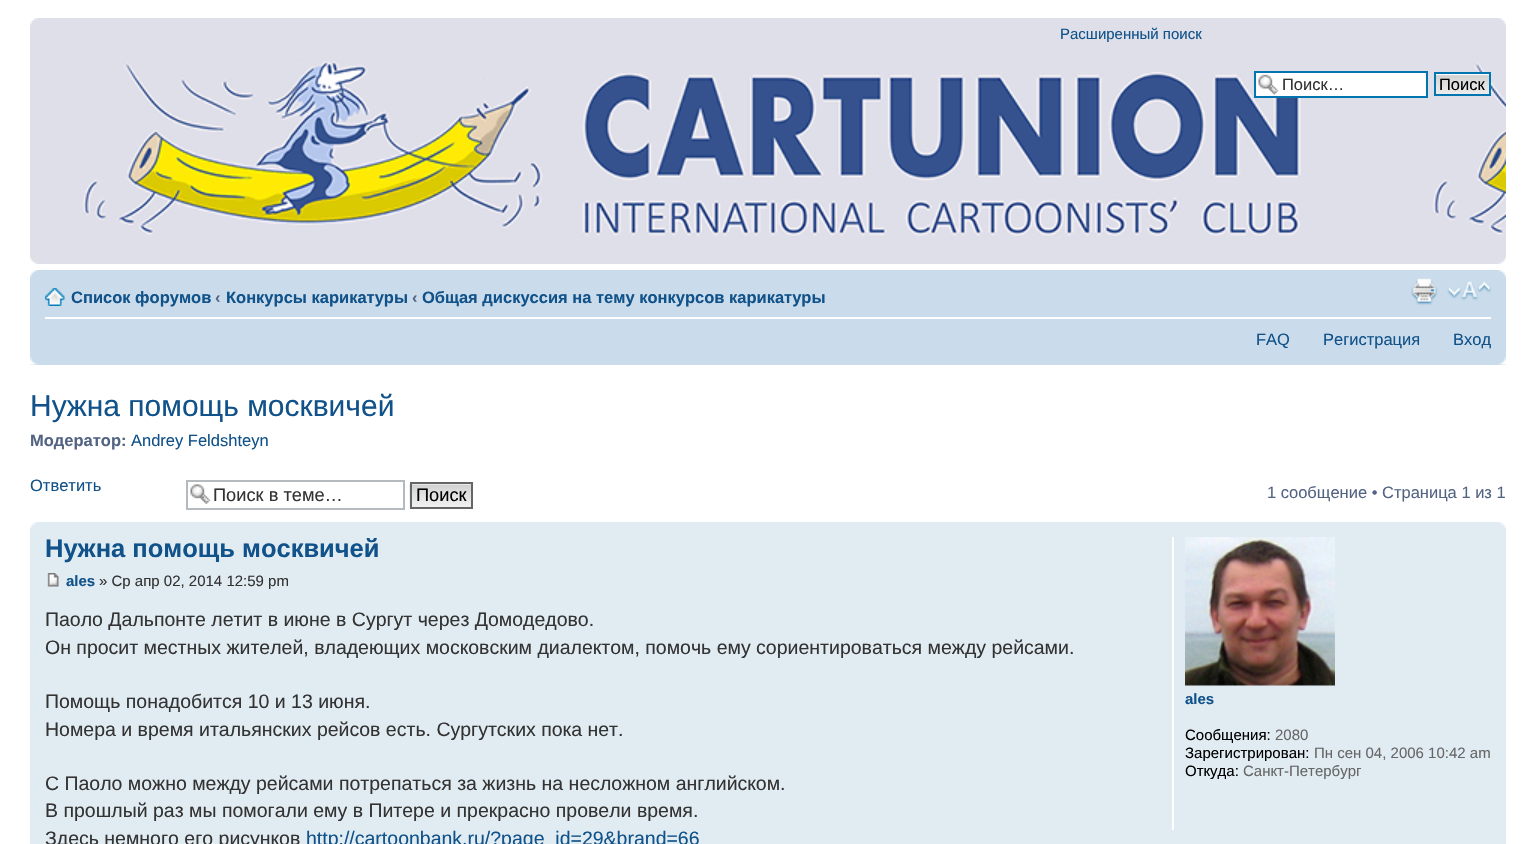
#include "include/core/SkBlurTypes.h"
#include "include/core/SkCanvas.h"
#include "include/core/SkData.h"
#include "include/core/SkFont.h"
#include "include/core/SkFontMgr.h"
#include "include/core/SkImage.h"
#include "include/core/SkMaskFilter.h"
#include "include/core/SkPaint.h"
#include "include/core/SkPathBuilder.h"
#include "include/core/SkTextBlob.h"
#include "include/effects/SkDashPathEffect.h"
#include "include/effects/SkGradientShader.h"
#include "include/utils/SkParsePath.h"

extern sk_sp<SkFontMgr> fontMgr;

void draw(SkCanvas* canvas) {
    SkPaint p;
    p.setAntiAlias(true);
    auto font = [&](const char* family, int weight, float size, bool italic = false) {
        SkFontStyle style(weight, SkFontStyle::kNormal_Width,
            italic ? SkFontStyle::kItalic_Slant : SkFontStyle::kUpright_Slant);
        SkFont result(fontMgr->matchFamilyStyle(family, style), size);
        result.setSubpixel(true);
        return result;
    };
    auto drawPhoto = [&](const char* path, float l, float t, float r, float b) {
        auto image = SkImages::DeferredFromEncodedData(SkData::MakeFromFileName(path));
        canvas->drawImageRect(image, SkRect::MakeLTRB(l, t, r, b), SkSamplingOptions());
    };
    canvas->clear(0xFFFFFFFF);
    drawPhoto("media/1.png", 30, 18, 1506, 264);
    drawPhoto("media/2.png", 30, 18, 38, 25);
    drawPhoto("media/3.png", 1499, 18, 1506, 25);
    auto font1 = font("Liberation Sans", 400, 15);
    p.setColor(0xFF105289);
    canvas->drawString("Расширенный поиск", 1060, 39, font1, p);
    p.setColor(0xFFFFFFFF);
    canvas->drawRect(SkRect::MakeLTRB(1256, 73, 1426, 96), p);
    drawPhoto("media/4.png", 1258, 74, 1279, 95);
    p.setStyle(SkPaint::kStroke_Style);
    p.setStrokeWidth(2);
    p.setColor(0xFF0075B0);
    canvas->drawRect(SkRect::MakeLTRB(1255, 72, 1427, 97), p);
    auto font2 = font("Liberation Sans", 400, 16.5f);
    p.setStyle(SkPaint::kFill_Style);
    p.setColor(0xFF333333);
    canvas->drawString("Поиск…", 1282, 90, font2, p);
    p.setColor(0xFFFAFAFA);
    canvas->drawRect(SkRect::MakeLTRB(1436, 74, 1489, 75), p);
    drawPhoto("media/5.png", 1436, 75, 1489, 94);
    p.setStyle(SkPaint::kStroke_Style);
    p.setColor(0xFF0075B0);
    canvas->drawRect(SkRect::MakeLTRB(1435, 73, 1490, 95), p);
    p.setStyle(SkPaint::kFill_Style);
    p.setColor(0xFF000000);
    canvas->drawString("Поиск", 1439, 90, font2, p);
    drawPhoto("media/6.png", 30, 257, 37, 264);
    drawPhoto("media/7.png", 1499, 257, 1506, 264);
    p.setColor(0xFFCADCEB);
    canvas->drawRect(SkRect::MakeLTRB(30, 270, 1506, 365), p);
    drawPhoto("media/8.png", 30, 270, 38, 278);
    drawPhoto("media/9.png", 1498, 270, 1506, 278);
    p.setColor(0xFFFFFFFF);
    canvas->drawRect(SkRect::MakeLTRB(45, 317, 1491, 319), p);
    drawPhoto("media/10.png", 45, 288, 65, 306);
    auto font3 = font("Liberation Sans", 700, 16.5f);
    p.setColor(0xFF105289);
    canvas->drawString("Список форумов", 71, 303, font3, p);
    p.setColor(0xFF536482);
    canvas->drawString("‹", 215, 303, font3, p);
    p.setColor(0xFF105289);
    canvas->drawString("Конкурсы карикатуры", 226, 303, font3, p);
    p.setColor(0xFF536482);
    canvas->drawString("‹", 412, 303, font3, p);
    p.setColor(0xFF105289);
    canvas->drawString("Общая дискуссия на тему конкурсов карикатуры", 422, 303, font3, p);
    drawPhoto("media/11.png", 1411, 278, 1438, 305);
    drawPhoto("media/12.png", 1447, 281, 1491, 301);
    {
        const struct { const char* s; float x, y; } items[] = {
            {"FAQ", 1256, 345},
            {"Регистрация", 1323, 345},
            {"Вход", 1453, 345},
        };
        for (auto [s, x, y] : items) {
            canvas->drawString(s, x, y, font2, p);
        }
    }
    drawPhoto("media/13.png", 30, 357, 38, 365);
    drawPhoto("media/14.png", 1498, 357, 1506, 365);
    auto font4 = font("Liberation Sans", 400, 30);
    canvas->drawString("Нужна помощь москвичей", 30, 416, font4, p);
    p.setColor(0xFF536482);
    canvas->drawString("Модератор:", 30, 446, font3, p);
    p.setColor(0xFF105289);
    canvas->drawString("Andrey Feldshteyn", 131, 446, font2, p);
    canvas->drawString("Ответить", 30, 491, font2, p);
    drawPhoto("media/15.png", 190, 484, 211, 504);
    p.setStyle(SkPaint::kStroke_Style);
    p.setColor(0xFFB4BAC0);
    canvas->drawRect(SkRect::MakeLTRB(187, 481, 404, 509), p);
    auto font5 = font("Liberation Sans", 400, 18.25f);
    p.setStyle(SkPaint::kFill_Style);
    p.setColor(0xFF333333);
    canvas->drawString("Поиск в теме…", 213, 501, font5, p);
    drawPhoto("media/16.png", 409, 483, 471, 509);
    p.setStyle(SkPaint::kStroke_Style);
    p.setColor(0xFF666666);
    canvas->drawRect(SkRect::MakeLTRB(411, 483, 472, 508), p);
    p.setStyle(SkPaint::kFill_Style);
    p.setColor(0xFF000000);
    canvas->drawString("Поиск", 416, 501, font5, p);
    p.setColor(0xFF536482);
    canvas->drawString("1 сообщение • Страница 1 из 1", 1267, 498, font2, p);
    p.setColor(0xFFE1EBF2);
    canvas->drawRect(SkRect::MakeLTRB(30, 522, 1506, 844), p);
    drawPhoto("media/17.png", 30, 522, 37, 529);
    drawPhoto("media/18.png", 1499, 522, 1506, 529);
    auto font6 = font("Liberation Sans", 700, 25.5f);
    p.setColor(0xFF105289);
    canvas->drawString("Нужна помощь москвичей", 45, 557, font6, p);
    drawPhoto("media/19.png", 47, 573, 59, 587);
    auto font7 = font("Liberation Sans", 700, 15);
    canvas->drawString("ales", 66, 586, font7, p);
    p.setColor(0xFF333333);
    canvas->drawString("» Ср апр 02, 2014 12:59 pm", 99, 586, font1, p);
    auto font8 = font("Liberation Sans", 400, 19.5f);
    {
        const struct { const char* s; float x, y; } items[] = {
            {"Паоло Дальпонте летит в июне в Сургут через Домодедово.", 45, 626},
            {"Он просит местных жителей, владеющих московским диалектом, помочь ему сориентироваться между рейсами.", 45, 654},
            {"Помощь понадобится 10 и 13 июня.", 45, 708},
            {"Номера и время итальянских рейсов есть. Сургутских пока нет.", 45, 736},
            {"С Паоло можно между рейсами потрепаться за жизнь на несложном английском.", 45, 790},
            {"В прошлый раз мы помогали ему в Питере и прекрасно провели время.", 45, 817},
            {"Здесь немного его рисунков", 45, 845},
        };
        for (auto [s, x, y] : items) {
            canvas->drawString(s, x, y, font8, p);
        }
    }
    p.setColor(0xFF105289);
    canvas->drawString("http://cartoonbank.ru/?page_id=29&brand=66", 306, 845, font8, p);
    p.setColor(0xFFFFFFFF);
    canvas->drawRect(SkRect::MakeLTRB(1172, 537, 1174, 830), p);
    drawPhoto("media/20.png", 1185, 537, 1335, 686);
    p.setColor(0xFF105289);
    canvas->drawString("ales", 1185, 704, font7, p);
    p.setColor(0xFF000000);
    canvas->drawString("Сообщения:", 1185, 740, font1, p);
    p.setColor(0xFF666666);
    canvas->drawString("2080", 1275, 740, font1, p);
    p.setColor(0xFF000000);
    canvas->drawString("Зарегистрирован:", 1185, 758, font1, p);
    p.setColor(0xFF666666);
    canvas->drawString("Пн сен 04, 2006 10:42 am", 1314, 758, font1, p);
    p.setColor(0xFF000000);
    canvas->drawString("Откуда:", 1185, 776, font1, p);
    p.setColor(0xFF666666);
    canvas->drawString("Санкт-Петербург", 1243, 776, font1, p);
}
